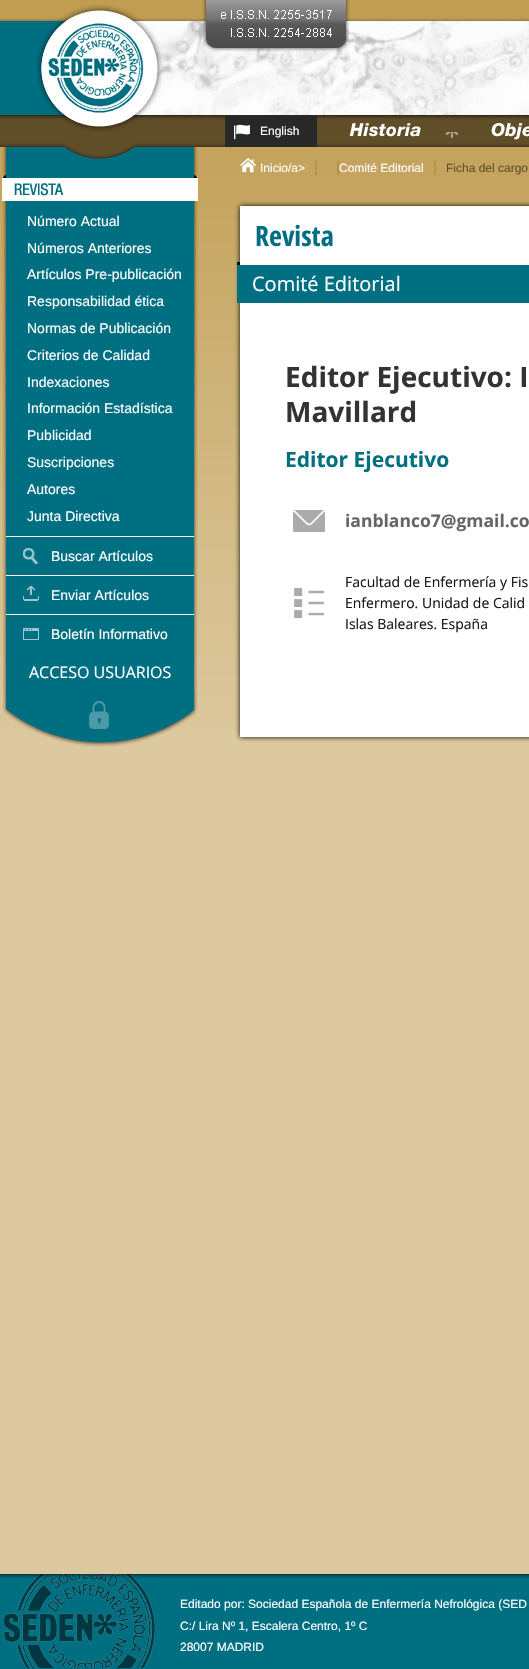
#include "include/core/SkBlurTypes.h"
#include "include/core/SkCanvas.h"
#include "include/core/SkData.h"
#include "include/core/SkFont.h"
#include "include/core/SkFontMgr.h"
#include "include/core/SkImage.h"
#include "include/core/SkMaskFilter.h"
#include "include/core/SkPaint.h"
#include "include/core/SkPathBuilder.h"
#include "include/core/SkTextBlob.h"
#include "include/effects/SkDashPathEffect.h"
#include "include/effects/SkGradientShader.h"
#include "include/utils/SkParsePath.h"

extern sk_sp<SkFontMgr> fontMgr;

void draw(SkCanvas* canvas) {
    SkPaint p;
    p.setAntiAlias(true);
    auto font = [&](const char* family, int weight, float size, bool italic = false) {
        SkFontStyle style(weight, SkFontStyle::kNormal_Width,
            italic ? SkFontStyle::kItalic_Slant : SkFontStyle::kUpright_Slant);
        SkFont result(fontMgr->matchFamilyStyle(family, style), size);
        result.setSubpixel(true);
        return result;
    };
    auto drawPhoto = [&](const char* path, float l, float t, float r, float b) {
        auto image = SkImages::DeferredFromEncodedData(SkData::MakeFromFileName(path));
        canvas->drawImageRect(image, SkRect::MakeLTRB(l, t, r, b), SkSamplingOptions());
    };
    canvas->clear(0xFFDCC99F);
    drawPhoto("media/1.png", 0, 0, 529, 730);
    drawPhoto("media/2.png", 0, 18, 529, 147);
    drawPhoto("media/3.png", 200, 16, 529, 115);
    drawPhoto("media/4.png", 36, 4, 200, 147);
    drawPhoto("media/5.png", 202, 0, 350, 52);
    p.setColor(0xFF282828);
    canvas->drawRect(SkRect::MakeLTRB(225, 115, 317, 147), p);
    drawPhoto("media/6.png", 234, 124, 250, 140);
    auto font1 = font("Liberation Sans", 400, 12);
    p.setColor(0xFFFFFFFF);
    canvas->drawString("English", 260, 135, font1, p);
    drawPhoto("media/7.png", 349, 123, 421, 137);
    drawPhoto("media/8.png", 445, 132, 459, 139);
    drawPhoto("media/9.png", 491, 123, 529, 140);
    drawPhoto("media/10.png", 2, 147, 198, 175);
    drawPhoto("media/11.png", 2, 175, 198, 536);
    drawPhoto("media/12.png", 2, 175, 198, 201);
    auto font2 = font("Liberation Sans", 400, 14);
    {
        const struct { const char* s; float x, y; } items[] = {
            {"Número Actual", 27, 226},
            {"Números Anteriores", 27, 253},
            {"Artículos Pre-publicación", 27, 279},
            {"Responsabilidad ética", 27, 306},
            {"Normas de Publicación", 27, 333},
            {"Criterios de Calidad", 27, 360},
            {"Indexaciones", 27, 387},
            {"Información Estadística", 27, 413},
            {"Publicidad", 27, 440},
            {"Suscripciones", 27, 467},
            {"Autores", 27, 494},
            {"Junta Directiva", 27, 521},
        };
        for (auto [s, x, y] : items) {
            canvas->drawString(s, x, y, font2, p);
        }
    }
    drawPhoto("media/13.png", 2, 536, 198, 653);
    canvas->drawRect(SkRect::MakeLTRB(6, 536, 194, 537), p);
    drawPhoto("media/14.png", 23, 548, 38, 564);
    canvas->drawString("Buscar Artículos", 51, 561, font2, p);
    canvas->drawRect(SkRect::MakeLTRB(6, 575, 194, 576), p);
    drawPhoto("media/15.png", 23, 586, 39, 601);
    canvas->drawString("Enviar Artículos", 51, 600, font2, p);
    canvas->drawRect(SkRect::MakeLTRB(6, 614, 194, 615), p);
    drawPhoto("media/16.png", 23, 628, 39, 640);
    canvas->drawString("Boletín Informativo", 51, 639, font2, p);
    drawPhoto("media/17.png", 2, 653, 198, 691);
    auto font3 = font("Open Sans", 400, 16);
    canvas->drawString("ACCESO USUARIOS", 29, 678, font3, p);
    drawPhoto("media/18.png", 2, 691, 198, 747);
    drawPhoto("media/19.png", 240, 158, 256, 173);
    canvas->drawString("Inicio/a>", 260, 172, font1, p);
    p.setColor(0xFFB5934A);
    canvas->drawRect(SkRect::MakeLTRB(315, 161, 317, 175), p);
    canvas->drawRect(SkRect::MakeLTRB(337, 161, 339, 175), p);
    p.setColor(0xFFFFFFFF);
    canvas->drawString("Comité Editorial", 339, 172, font1, p);
    p.setColor(0xFFB5934A);
    canvas->drawRect(SkRect::MakeLTRB(434, 161, 436, 175), p);
    p.setColor(0xFF604E28);
    canvas->drawString("Ficha del cargo", 446, 172, font1, p);
    p.setColor(0xFF000000);
    p.setMaskFilter(SkMaskFilter::MakeBlur(kNormal_SkBlurStyle, 2.5f));
    canvas->drawRect(SkRect::MakeLTRB(240, 206, 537, 737), p);
    p.setMaskFilter(nullptr);
    p.setColor(0xFFFFFFFF);
    canvas->drawRect(SkRect::MakeLTRB(240, 206, 529, 737), p);
    auto font4 = font("Open Sans Condensed", 700, 28);
    p.setColor(0xFF006F81);
    canvas->drawString("Revista", 255, 246, font4, p);
    p.setColor(0xFF000000);
    canvas->drawRect(SkRect::MakeLTRB(237, 262, 240, 265), p);
    p.setColor(0xFF006F81);
    canvas->drawRect(SkRect::MakeLTRB(237, 265, 529, 303), p);
    auto font5 = font("Open Sans", 400, 20);
    p.setColor(0xFFFFFFFF);
    canvas->drawString("Comité Editorial", 252, 291, font5, p);
    auto font6 = font("Open Sans", 700, 28);
    p.setColor(0xFF333333);
    canvas->drawString("Editor Ejecutivo: I", 285, 387, font6, p);
    canvas->drawString("Mavillard", 285, 422, font6, p);
    auto font7 = font("Open Sans", 700, 21);
    p.setColor(0xFF006F81);
    canvas->drawString("Editor Ejecutivo", 285, 467, font7, p);
    drawPhoto("media/20.png", 293, 510, 325, 532);
    auto font8 = font("Open Sans", 700, 17.5f);
    p.setColor(0xFF666666);
    canvas->drawString("ianblanco7@gmail.co", 345, 527, font8, p);
    drawPhoto("media/21.png", 294, 588, 324, 618);
    auto font9 = font("Open Sans", 400, 14);
    p.setColor(0xFF141414);
    {
        const struct { const char* s; float x, y; } items[] = {
            {"Facultad de Enfermería y Fis", 345, 587},
            {"Enfermero. Unidad de Calid", 345, 608},
            {"Islas Baleares. España", 345, 629},
        };
        for (auto [s, x, y] : items) {
            canvas->drawString(s, x, y, font9, p);
        }
    }
    p.setColor(0xFF006F81);
    canvas->drawRect(SkRect::MakeLTRB(0, 1578, 529, 1669), p);
    drawPhoto("media/22.png", 0, 1574, 529, 1578);
    drawPhoto("media/23.png", 3, 1574, 155, 1668);
    p.setColor(0xFFFFFFFF);
    {
        const struct { const char* s; float x, y; } items[] = {
            {"Editado por: Sociedad Española de Enfermería Nefrológica (SED", 180, 1608},
            {"C:/ Lira Nº 1, Escalera Centro, 1º C", 180, 1630},
            {"28007 MADRID", 180, 1651},
        };
        for (auto [s, x, y] : items) {
            canvas->drawString(s, x, y, font1, p);
        }
    }
}
